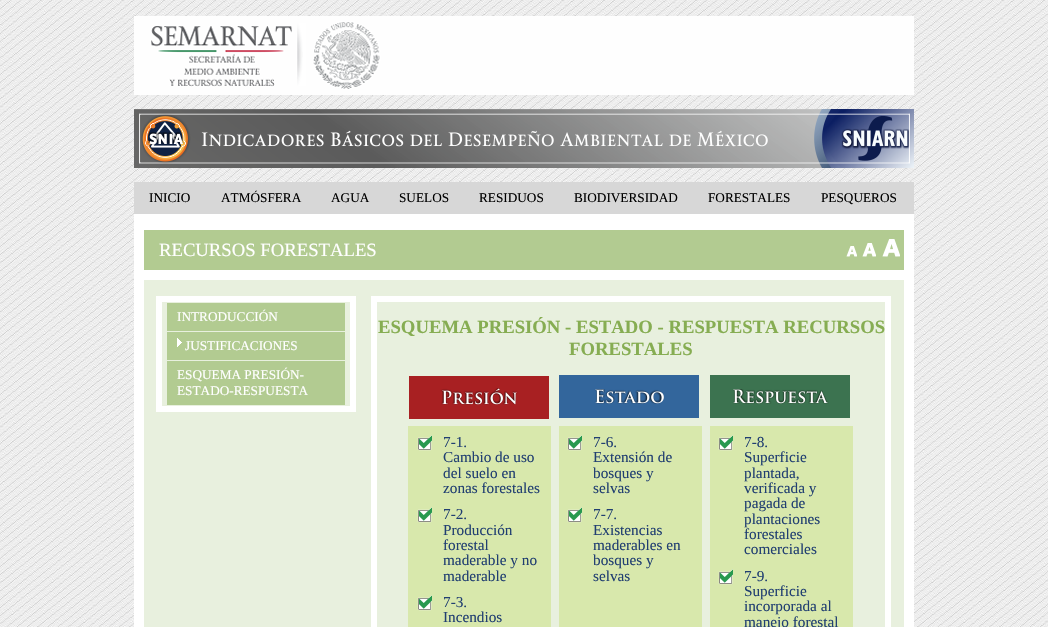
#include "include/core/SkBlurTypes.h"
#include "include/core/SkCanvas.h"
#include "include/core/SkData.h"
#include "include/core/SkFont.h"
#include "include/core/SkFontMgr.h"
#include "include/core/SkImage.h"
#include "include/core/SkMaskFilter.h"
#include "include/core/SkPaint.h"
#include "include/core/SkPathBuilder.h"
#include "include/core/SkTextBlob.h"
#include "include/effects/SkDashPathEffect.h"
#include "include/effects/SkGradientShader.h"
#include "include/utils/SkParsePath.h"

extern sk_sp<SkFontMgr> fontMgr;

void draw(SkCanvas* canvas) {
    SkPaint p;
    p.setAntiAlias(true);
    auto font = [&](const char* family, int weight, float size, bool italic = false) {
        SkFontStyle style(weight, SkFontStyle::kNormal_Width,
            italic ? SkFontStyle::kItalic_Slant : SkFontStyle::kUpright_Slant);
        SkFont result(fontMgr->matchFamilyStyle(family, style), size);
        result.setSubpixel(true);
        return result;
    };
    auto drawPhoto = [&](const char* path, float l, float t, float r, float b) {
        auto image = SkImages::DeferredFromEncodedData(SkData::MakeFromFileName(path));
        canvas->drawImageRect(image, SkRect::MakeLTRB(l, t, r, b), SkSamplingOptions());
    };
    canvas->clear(0xFFFFFFFF);
    drawPhoto("media/1.png", 0, 0, 1048, 627);
    drawPhoto("media/2.png", 134, 16, 914, 95);
    drawPhoto("media/3.png", 134, 109, 914, 168);
    p.setColor(0xFFD7D7D7);
    canvas->drawRect(SkRect::MakeLTRB(134, 182, 914, 214), p);
    auto font1 = font("Liberation Serif", 400, 13.25f);
    p.setColor(0xFF000000);
    {
        const struct { const char* s; float x, y; } items[] = {
            {"INICIO", 149, 202},
            {"ATMÓSFERA", 221, 202},
            {"AGUA", 331, 202},
            {"SUELOS", 399, 202},
            {"RESIDUOS", 479, 202},
            {"BIODIVERSIDAD", 574, 202},
            {"FORESTALES", 708, 202},
            {"PESQUEROS", 821, 202},
        };
        for (auto [s, x, y] : items) {
            canvas->drawString(s, x, y, font1, p);
        }
    }
    {
        const struct { float l, t, r, b; SkColor color; } items[] = {
            {134, 214, 914, 230, 0xFFFFFFFF},
            {144, 230, 904, 270, 0xFFB2CB91},
            {134, 230, 144, 270, 0xFFFFFFFF},
        };
        for (auto [l, t, r, b, color] : items) {
            p.setColor(color);
            canvas->drawRect(SkRect::MakeLTRB(l, t, r, b), p);
        }
    }
    auto font2 = font("Liberation Serif", 400, 18.7f);
    canvas->drawString("RECURSOS FORESTALES", 159, 256, font2, p);
    drawPhoto("media/4.png", 846, 246, 857, 257);
    drawPhoto("media/5.png", 862, 243, 876, 257);
    drawPhoto("media/6.png", 882, 239, 900, 257);
    {
        const struct { float l, t, r, b; SkColor color; } items[] = {
            {904, 230, 914, 270, 0xFFFFFFFF},
            {134, 270, 914, 627, 0xFFFFFFFF},
            {144, 280, 904, 627, 0xFFE8F0DE},
            {156, 296, 356, 412, 0xFFFFFFFF},
            {162, 302, 350, 406, 0xFFE8F0DE},
            {167, 303, 345, 331, 0xFFB2CB91},
        };
        for (auto [l, t, r, b, color] : items) {
            p.setColor(color);
            canvas->drawRect(SkRect::MakeLTRB(l, t, r, b), p);
        }
    }
    p.setColor(0xFFFFFFFF);
    canvas->drawString("INTRODUCCIÓN", 177, 321, font1, p);
    p.setColor(0xFFB2CB91);
    canvas->drawRect(SkRect::MakeLTRB(167, 332, 345, 360), p);
    drawPhoto("media/7.png", 177, 338, 182, 347);
    p.setColor(0xFFFFFFFF);
    canvas->drawString("JUSTIFICACIONES", 185, 350, font1, p);
    p.setColor(0xFFB2CB91);
    canvas->drawRect(SkRect::MakeLTRB(167, 361, 345, 405), p);
    p.setColor(0xFFFFFFFF);
    canvas->drawString("ESQUEMA PRESIÓN-", 177, 379, font1, p);
    canvas->drawString("ESTADO-RESPUESTA", 177, 395, font1, p);
    canvas->drawRect(SkRect::MakeLTRB(371, 296, 891, 627), p);
    p.setColor(0xFFE8F0DE);
    canvas->drawRect(SkRect::MakeLTRB(377, 302, 885, 627), p);
    auto font3 = font("Liberation Serif", 700, 18.7f);
    p.setColor(0xFF86AD52);
    canvas->drawString("ESQUEMA PRESIÓN - ESTADO - RESPUESTA RECURSOS", 378, 333, font3, p);
    canvas->drawString("FORESTALES", 569, 355, font3, p);
    drawPhoto("media/8.png", 409, 376, 549, 419);
    drawPhoto("media/9.png", 559, 375, 699, 418);
    drawPhoto("media/10.png", 710, 375, 850, 418);
    p.setColor(0xFFD8E8AC);
    canvas->drawRect(SkRect::MakeLTRB(408, 426, 551, 627), p);
    drawPhoto("media/11.png", 417, 435, 432, 451);
    auto font4 = font("Liberation Serif", 400, 15.25f);
    p.setColor(0xFF213F71);
    {
        const struct { const char* s; float x, y; } items[] = {
            {"7-1.", 443, 447},
            {"Cambio de uso", 443, 462},
            {"del suelo en", 443, 478},
            {"zonas forestales", 443, 493},
        };
        for (auto [s, x, y] : items) {
            canvas->drawString(s, x, y, font4, p);
        }
    }
    drawPhoto("media/11.png", 417, 507, 432, 523);
    {
        const struct { const char* s; float x, y; } items[] = {
            {"7-2.", 443, 519},
            {"Producción", 443, 535},
            {"forestal", 443, 550},
            {"maderable y no", 443, 565},
            {"maderable", 443, 581},
        };
        for (auto [s, x, y] : items) {
            canvas->drawString(s, x, y, font4, p);
        }
    }
    drawPhoto("media/11.png", 417, 595, 432, 611);
    canvas->drawString("7-3.", 443, 607, font4, p);
    canvas->drawString("Incendios", 443, 622, font4, p);
    p.setColor(0xFFD8E8AC);
    canvas->drawRect(SkRect::MakeLTRB(559, 426, 702, 627), p);
    drawPhoto("media/11.png", 567, 435, 582, 451);
    p.setColor(0xFF213F71);
    {
        const struct { const char* s; float x, y; } items[] = {
            {"7-6.", 593, 447},
            {"Extensión de", 593, 462},
            {"bosques y", 593, 478},
            {"selvas", 593, 493},
        };
        for (auto [s, x, y] : items) {
            canvas->drawString(s, x, y, font4, p);
        }
    }
    drawPhoto("media/11.png", 567, 507, 582, 523);
    {
        const struct { const char* s; float x, y; } items[] = {
            {"7-7.", 593, 519},
            {"Existencias", 593, 535},
            {"maderables en", 593, 550},
            {"bosques y", 593, 565},
            {"selvas", 593, 581},
        };
        for (auto [s, x, y] : items) {
            canvas->drawString(s, x, y, font4, p);
        }
    }
    p.setColor(0xFFD8E8AC);
    canvas->drawRect(SkRect::MakeLTRB(710, 426, 853, 627), p);
    drawPhoto("media/11.png", 718, 435, 733, 451);
    p.setColor(0xFF213F71);
    {
        const struct { const char* s; float x, y; } items[] = {
            {"7-8.", 744, 447},
            {"Superficie", 744, 462},
            {"plantada,", 744, 478},
            {"verificada y", 744, 493},
            {"pagada de", 744, 508},
            {"plantaciones", 744, 524},
            {"forestales", 744, 539},
            {"comerciales", 744, 554},
        };
        for (auto [s, x, y] : items) {
            canvas->drawString(s, x, y, font4, p);
        }
    }
    drawPhoto("media/11.png", 718, 569, 733, 585);
    {
        const struct { const char* s; float x, y; } items[] = {
            {"7-9.", 744, 581},
            {"Superficie", 744, 596},
            {"incorporada al", 744, 611},
            {"manejo forestal", 744, 627},
        };
        for (auto [s, x, y] : items) {
            canvas->drawString(s, x, y, font4, p);
        }
    }
}
